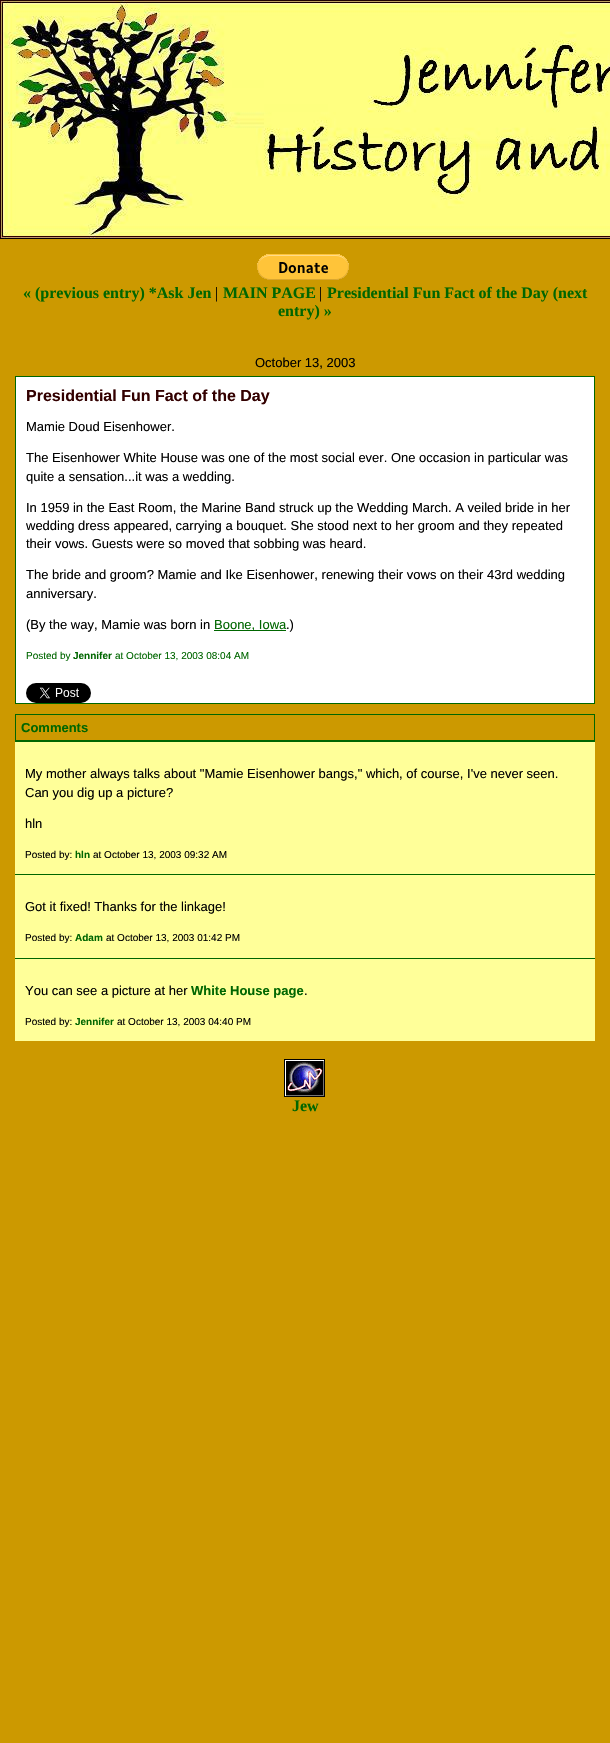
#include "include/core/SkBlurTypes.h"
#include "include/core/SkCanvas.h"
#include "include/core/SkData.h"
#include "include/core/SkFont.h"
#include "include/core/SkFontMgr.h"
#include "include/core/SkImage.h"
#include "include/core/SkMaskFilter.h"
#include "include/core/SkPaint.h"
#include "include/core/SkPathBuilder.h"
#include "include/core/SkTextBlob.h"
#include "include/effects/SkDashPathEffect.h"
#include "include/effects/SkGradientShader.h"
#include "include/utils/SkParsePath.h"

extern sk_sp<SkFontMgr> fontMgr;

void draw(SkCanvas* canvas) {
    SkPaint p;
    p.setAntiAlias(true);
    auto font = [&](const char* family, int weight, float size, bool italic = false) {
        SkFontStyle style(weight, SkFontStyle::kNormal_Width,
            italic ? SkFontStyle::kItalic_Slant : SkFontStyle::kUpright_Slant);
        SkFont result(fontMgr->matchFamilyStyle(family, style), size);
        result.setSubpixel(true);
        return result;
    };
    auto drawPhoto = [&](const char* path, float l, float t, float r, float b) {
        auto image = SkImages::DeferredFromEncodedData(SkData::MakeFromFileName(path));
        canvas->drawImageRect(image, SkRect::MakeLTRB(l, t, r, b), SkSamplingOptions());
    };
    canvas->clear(0xFFCC9900);
    drawPhoto("media/1.png", 0, 0, 610, 239);
    drawPhoto("media/2.png", 257, 254, 349, 280);
    auto font1 = font("Liberation Serif", 700, 16);
    p.setColor(0xFF006600);
    canvas->drawString("« (previous entry) *Ask Jen", 23, 298, font1, p);
    auto font2 = font("Liberation Serif", 400, 16);
    p.setColor(0xFF000000);
    canvas->drawString("|", 215, 298, font2, p);
    p.setColor(0xFF006600);
    canvas->drawString("MAIN PAGE", 223, 298, font1, p);
    p.setColor(0xFF000000);
    canvas->drawString("|", 319, 298, font2, p);
    p.setColor(0xFF006600);
    canvas->drawString("Presidential Fun Fact of the Day (next", 327, 298, font1, p);
    canvas->drawString("entry) »", 278, 316, font1, p);
    auto font3 = font("Liberation Sans", 400, 13);
    p.setColor(0xFF000000);
    canvas->drawString("October 13, 2003", 255, 367, font3, p);
    p.setColor(0xFFFFFFFF);
    canvas->drawRect(SkRect::MakeLTRB(15.5f, 376.5f, 594.5f, 703.5f), p);
    p.setStyle(SkPaint::kStroke_Style);
    p.setStrokeWidth(1);
    p.setColor(0xFF006600);
    canvas->drawRect(SkRect::MakeLTRB(15.5f, 376.5f, 594.5f, 703.5f), p);
    auto font4 = font("Liberation Sans", 700, 16);
    p.setStyle(SkPaint::kFill_Style);
    p.setColor(0xFF330000);
    canvas->drawString("Presidential Fun Fact of the Day", 26, 401, font4, p);
    p.setColor(0xFF000000);
    {
        const struct { const char* s; float x, y; } items[] = {
            {"Mamie Doud Eisenhower.", 26, 431},
            {"The Eisenhower White House was one of the most social ever. One occasion in particular was", 26, 462},
            {"quite a sensation...it was a wedding.", 26, 481},
            {"In 1959 in the East Room, the Marine Band struck up the Wedding March. A veiled bride in her", 26, 512},
            {"wedding dress appeared, carrying a bouquet. She stood next to her groom and they repeated", 26, 530},
            {"their vows. Guests were so moved that sobbing was heard.", 26, 548},
            {"The bride and groom? Mamie and Ike Eisenhower, renewing their vows on their 43rd wedding", 26, 579},
            {"anniversary.", 26, 598},
            {"(By the way, Mamie was born in", 26, 629},
        };
        for (auto [s, x, y] : items) {
            canvas->drawString(s, x, y, font3, p);
        }
    }
    p.setColor(0xFF006600);
    canvas->drawRect(SkRect::MakeLTRB(214, 630, 286, 631), p);
    canvas->drawString("Boone, Iowa", 214, 629, font3, p);
    p.setColor(0xFF000000);
    canvas->drawString(".)", 286, 629, font3, p);
    auto font5 = font("Liberation Sans", 400, 10);
    p.setColor(0xFF006600);
    canvas->drawString("Posted by", 26, 659, font5, p);
    auto font6 = font("Liberation Sans", 700, 10);
    canvas->drawString("Jennifer", 73, 659, font6, p);
    canvas->drawString("at October 13, 2003 08:04 AM", 115, 659, font5, p);
    drawPhoto("media/3.png", 26, 683, 91, 703);
    p.setStyle(SkPaint::kStroke_Style);
    canvas->drawRect(SkRect::MakeLTRB(15.5f, 714.5f, 594.5f, 740.5f), p);
    auto font7 = font("Liberation Sans", 700, 13);
    p.setStyle(SkPaint::kFill_Style);
    canvas->drawString("Comments", 21, 732, font7, p);
    p.setColor(0xFFFFFF99);
    canvas->drawRect(SkRect::MakeLTRB(15, 742, 595, 874), p);
    p.setColor(0xFF006600);
    canvas->drawRect(SkRect::MakeLTRB(15, 741, 595, 742), p);
    p.setColor(0xFF000000);
    {
        const struct { const char* s; float x, y; } items[] = {
            {"My mother always talks about \"Mamie Eisenhower bangs,\" which, of course, I've never seen.", 25, 778},
            {"Can you dig up a picture?", 25, 797},
            {"hln", 25, 828},
        };
        for (auto [s, x, y] : items) {
            canvas->drawString(s, x, y, font3, p);
        }
    }
    canvas->drawString("Posted by:", 25, 858, font5, p);
    p.setColor(0xFF006600);
    canvas->drawString("hln", 75, 858, font6, p);
    p.setColor(0xFF000000);
    canvas->drawString("at October 13, 2003 09:32 AM", 93, 858, font5, p);
    p.setColor(0xFFFFFF99);
    canvas->drawRect(SkRect::MakeLTRB(15, 875, 595, 958), p);
    p.setColor(0xFF006600);
    canvas->drawRect(SkRect::MakeLTRB(15, 874, 595, 875), p);
    p.setColor(0xFF000000);
    canvas->drawString("Got it fixed! Thanks for the linkage!", 25, 911, font3, p);
    canvas->drawString("Posted by:", 25, 941, font5, p);
    p.setColor(0xFF006600);
    canvas->drawString("Adam", 75, 941, font6, p);
    p.setColor(0xFF000000);
    canvas->drawString("at October 13, 2003 01:42 PM", 106, 941, font5, p);
    p.setColor(0xFFFFFF99);
    canvas->drawRect(SkRect::MakeLTRB(15, 959, 595, 1041), p);
    p.setColor(0xFF006600);
    canvas->drawRect(SkRect::MakeLTRB(15, 958, 595, 959), p);
    p.setColor(0xFF000000);
    canvas->drawString("You can see a picture at her", 25, 995, font3, p);
    p.setColor(0xFF006600);
    canvas->drawString("White House page", 191, 995, font7, p);
    p.setColor(0xFF000000);
    canvas->drawString(".", 304, 995, font3, p);
    canvas->drawString("Posted by:", 25, 1025, font5, p);
    p.setColor(0xFF006600);
    canvas->drawString("Jennifer", 75, 1025, font6, p);
    p.setColor(0xFF000000);
    canvas->drawString("at October 13, 2003 04:40 PM", 117, 1025, font5, p);
    drawPhoto("media/4.png", 284, 1059, 325, 1097);
    p.setColor(0xFF006600);
    canvas->drawString("Jew", 292, 1111, font1, p);
}
